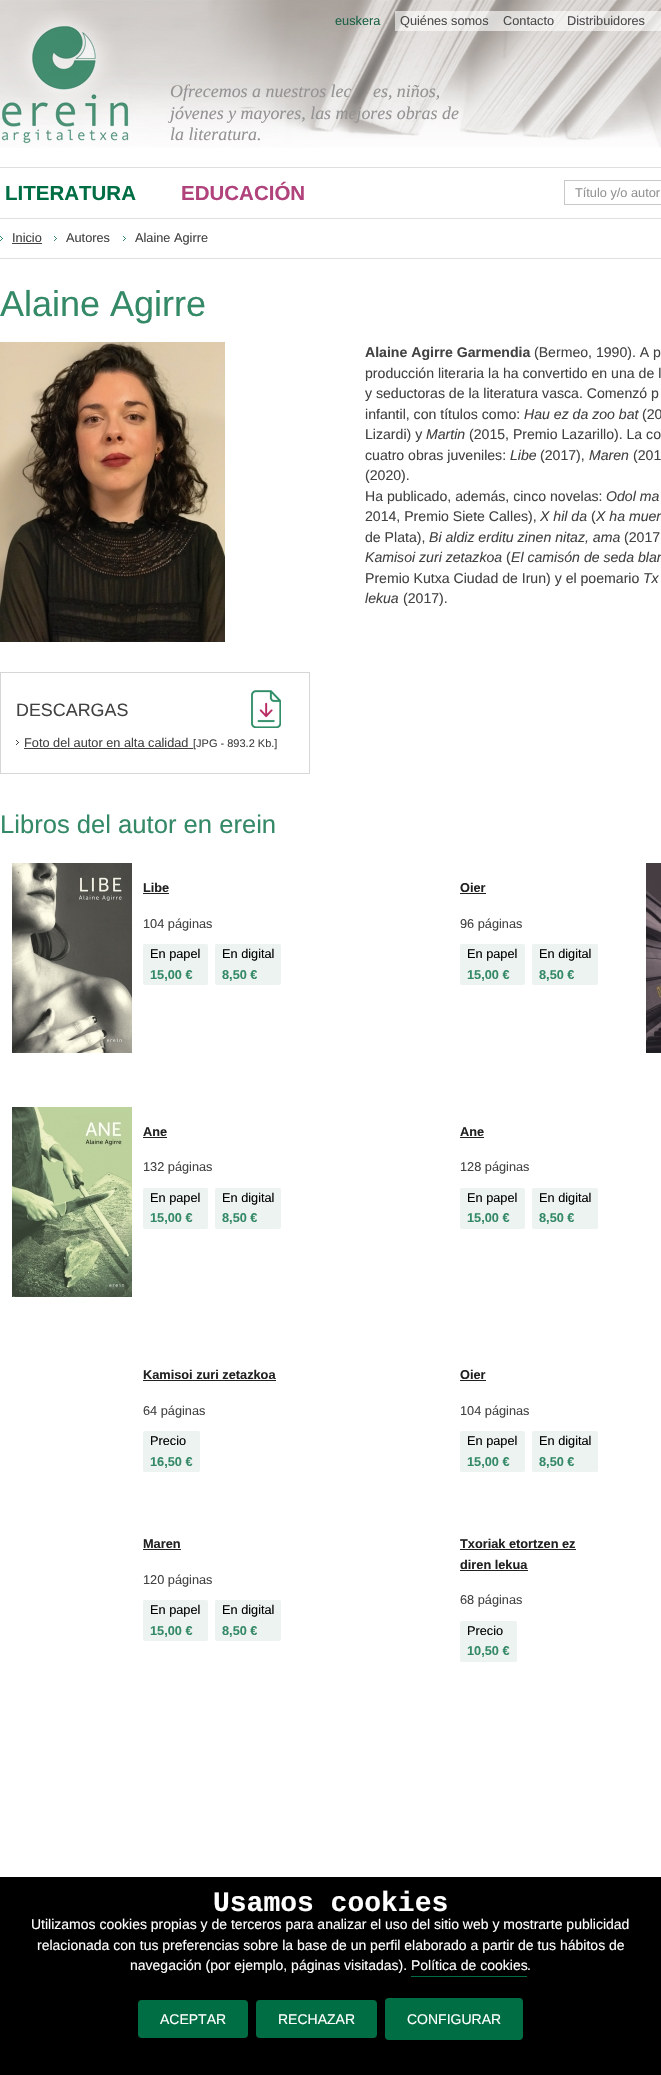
#include "include/core/SkBlurTypes.h"
#include "include/core/SkCanvas.h"
#include "include/core/SkData.h"
#include "include/core/SkFont.h"
#include "include/core/SkFontMgr.h"
#include "include/core/SkImage.h"
#include "include/core/SkMaskFilter.h"
#include "include/core/SkPaint.h"
#include "include/core/SkPathBuilder.h"
#include "include/core/SkTextBlob.h"
#include "include/effects/SkDashPathEffect.h"
#include "include/effects/SkGradientShader.h"
#include "include/utils/SkParsePath.h"

extern sk_sp<SkFontMgr> fontMgr;

void draw(SkCanvas* canvas) {
    SkPaint p;
    p.setAntiAlias(true);
    auto font = [&](const char* family, int weight, float size, bool italic = false) {
        SkFontStyle style(weight, SkFontStyle::kNormal_Width,
            italic ? SkFontStyle::kItalic_Slant : SkFontStyle::kUpright_Slant);
        SkFont result(fontMgr->matchFamilyStyle(family, style), size);
        result.setSubpixel(true);
        return result;
    };
    auto drawPhoto = [&](const char* path, float l, float t, float r, float b) {
        auto image = SkImages::DeferredFromEncodedData(SkData::MakeFromFileName(path));
        canvas->drawImageRect(image, SkRect::MakeLTRB(l, t, r, b), SkSamplingOptions());
    };
    canvas->clear(0xFFFFFFFF);
    drawPhoto("media/1.png", 0, 0, 661, 148);
    auto font1 = font("Liberation Sans", 400, 12.75f);
    p.setColor(0xFF1B6145);
    canvas->drawString("euskera", 335, 25, font1, p);
    p.setColor(0x9CFFFFFF);
    canvas->drawRect(SkRect::MakeLTRB(395, 11, 661, 31), p);
    p.setColor(0xFF4B4B4B);
    {
        const struct { const char* s; float x, y; } items[] = {
            {"Quiénes somos", 400, 25},
            {"Contacto", 503, 25},
            {"Distribuidores", 567, 25},
        };
        for (auto [s, x, y] : items) {
            canvas->drawString(s, x, y, font1, p);
        }
    }
    drawPhoto("media/2.png", 0, 10, 129, 144);
    auto font2 = font("Liberation Serif", 400, 17.9f, true);
    p.setColor(0xFF939393);
    {
        const struct { const char* s; float x, y; } items[] = {
            {"Ofrecemos a nuestros lec", 170, 97},
            {"es, niños,", 373, 97},
            {"jóvenes y mayores, las mejores obras de", 170, 119},
            {"la literatura.", 170, 140},
        };
        for (auto [s, x, y] : items) {
            canvas->drawString(s, x, y, font2, p);
        }
    }
    p.setColor(0xFFDFDFDF);
    canvas->drawRect(SkRect::MakeLTRB(0, 167, 661, 168), p);
    canvas->drawRect(SkRect::MakeLTRB(0, 218, 661, 219), p);
    auto font3 = font("Liberation Sans", 700, 20.5f);
    p.setColor(0xFF006E44);
    canvas->drawString("LITERATURA", 5, 200, font3, p);
    p.setColor(0xFFB1437C);
    canvas->drawString("EDUCACIÓN", 181, 200, font3, p);
    p.setStyle(SkPaint::kStroke_Style);
    p.setStrokeWidth(1);
    p.setColor(0xFFC8C8C8);
    canvas->drawRect(SkRect::MakeLTRB(564.5f, 180.5f, 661.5f, 204.5f), p);
    p.setStyle(SkPaint::kFill_Style);
    p.setColor(0xFF939393);
    canvas->drawString("Título y/o autor", 575, 197, font1, p);
    p.setColor(0xFFDFDFDF);
    canvas->drawRect(SkRect::MakeLTRB(0, 258, 661, 259), p);
    drawPhoto("media/3.png", 0, 236, 3, 241);
    p.setColor(0xFF424242);
    canvas->drawString("Inicio", 12, 242, font1, p);
    canvas->drawRect(SkRect::MakeLTRB(12, 243, 42, 244), p);
    drawPhoto("media/3.png", 54, 236, 57, 241);
    canvas->drawString("Autores", 66, 242, font1, p);
    drawPhoto("media/3.png", 123, 236, 126, 241);
    canvas->drawString("Alaine Agirre", 135, 242, font1, p);
    auto font4 = font("Liberation Sans", 400, 36);
    p.setColor(0xFF348967);
    canvas->drawString("Alaine Agirre", 0, 316, font4, p);
    auto font5 = font("Liberation Sans", 700, 14.1f);
    p.setColor(0xFF424242);
    canvas->drawString("Alaine Agirre Garmendia", 365, 357, font5, p);
    auto font6 = font("Liberation Sans", 400, 14.1f);
    {
        const struct { const char* s; float x, y; } items[] = {
            {"(Bermeo, 1990). A p", 534, 357},
            {"producción literaria la ha convertido en una de l", 365, 378},
            {"y seductoras de la literatura vasca. Comenzó p", 365, 398},
            {"infantil, con títulos como:", 365, 419},
        };
        for (auto [s, x, y] : items) {
            canvas->drawString(s, x, y, font6, p);
        }
    }
    auto font7 = font("Liberation Sans", 400, 14.1f, true);
    canvas->drawString("Hau ez da zoo bat", 524, 419, font7, p);
    canvas->drawString("(20", 642, 419, font6, p);
    canvas->drawString("Lizardi) y", 365, 439, font6, p);
    canvas->drawString("Martin", 426, 439, font7, p);
    canvas->drawString("(2015, Premio Lazarillo). La co", 469, 439, font6, p);
    canvas->drawString("cuatro obras juveniles:", 365, 460, font6, p);
    canvas->drawString("Libe", 510, 460, font7, p);
    canvas->drawString("(2017),", 540, 460, font6, p);
    canvas->drawString("Maren", 589, 460, font7, p);
    {
        const struct { const char* s; float x, y; } items[] = {
            {"(201", 633, 460},
            {"(2020).", 365, 480},
            {"Ha publicado, además, cinco novelas:", 365, 501},
        };
        for (auto [s, x, y] : items) {
            canvas->drawString(s, x, y, font6, p);
        }
    }
    canvas->drawString("Odol ma", 606, 501, font7, p);
    canvas->drawString("2014, Premio Siete Calles),", 365, 521, font6, p);
    canvas->drawString("X hil da", 540, 521, font7, p);
    canvas->drawString("(", 591, 521, font6, p);
    canvas->drawString("X ha muer", 596, 521, font7, p);
    canvas->drawString("de Plata),", 365, 542, font6, p);
    canvas->drawString("Bi aldiz erditu zinen nitaz, ama", 429, 542, font7, p);
    canvas->drawString("(2017", 624, 542, font6, p);
    canvas->drawString("Kamisoi zuri zetazkoa", 365, 562, font7, p);
    canvas->drawString("(", 506, 562, font6, p);
    canvas->drawString("El camisón de seda blan", 511, 562, font7, p);
    canvas->drawString("Premio Kutxa Ciudad de Irun) y el poemario", 365, 583, font6, p);
    canvas->drawString("Tx", 643, 583, font7, p);
    canvas->drawString("lekua", 365, 603, font7, p);
    canvas->drawString("(2017).", 403, 603, font6, p);
    drawPhoto("media/4.png", 0, 342, 225, 642);
    drawPhoto("media/5.png", 251, 690, 281, 728);
    p.setStyle(SkPaint::kStroke_Style);
    p.setColor(0xFFD6D6D6);
    canvas->drawRect(SkRect::MakeLTRB(0.5f, 672.5f, 309.5f, 773.5f), p);
    auto font8 = font("Liberation Sans", 400, 17.9f);
    p.setStyle(SkPaint::kFill_Style);
    p.setColor(0xFF424242);
    canvas->drawString("DESCARGAS", 16, 716, font8, p);
    drawPhoto("media/6.png", 16, 740, 19, 745);
    canvas->drawString("Foto del autor en alta calidad", 24, 747, font1, p);
    canvas->drawRect(SkRect::MakeLTRB(24, 748, 193, 749), p);
    auto font9 = font("Liberation Sans", 400, 11);
    canvas->drawString("[JPG - 893.2 Kb.]", 193, 747, font9, p);
    auto font10 = font("Liberation Sans", 400, 25.6f);
    p.setColor(0xFF348967);
    canvas->drawString("Libros del autor en erein", 0, 833, font10, p);
    drawPhoto("media/7.png", 12, 863, 132, 1053);
    auto font11 = font("Liberation Sans", 700, 12.75f);
    p.setColor(0xFF212121);
    canvas->drawString("Libe", 143, 892, font11, p);
    canvas->drawRect(SkRect::MakeLTRB(143, 893, 169, 894), p);
    p.setColor(0xFF424242);
    canvas->drawString("104 páginas", 143, 928, font1, p);
    p.setColor(0xFFEDF3F1);
    canvas->drawRoundRect(SkRect::MakeLTRB(143, 944, 208, 985), 2, 2, p);
    p.setColor(0xFF000000);
    canvas->drawString("En papel", 150, 958, font1, p);
    p.setColor(0xFF348967);
    canvas->drawString("15,00 €", 150, 979, font11, p);
    p.setColor(0xFFEDF3F1);
    canvas->drawRoundRect(SkRect::MakeLTRB(215, 944, 281, 985), 2, 2, p);
    p.setColor(0xFF000000);
    canvas->drawString("En digital", 222, 958, font1, p);
    p.setColor(0xFF348967);
    canvas->drawString("8,50 €", 222, 979, font11, p);
    p.setColor(0xFF212121);
    canvas->drawString("Oier", 460, 892, font11, p);
    canvas->drawRect(SkRect::MakeLTRB(460, 893, 486, 894), p);
    p.setColor(0xFF424242);
    canvas->drawString("96 páginas", 460, 928, font1, p);
    p.setColor(0xFFEDF3F1);
    canvas->drawRoundRect(SkRect::MakeLTRB(460, 944, 525, 985), 2, 2, p);
    p.setColor(0xFF000000);
    canvas->drawString("En papel", 467, 958, font1, p);
    p.setColor(0xFF348967);
    canvas->drawString("15,00 €", 467, 979, font11, p);
    p.setColor(0xFFEDF3F1);
    canvas->drawRoundRect(SkRect::MakeLTRB(532, 944, 598, 985), 2, 2, p);
    p.setColor(0xFF000000);
    canvas->drawString("En digital", 539, 958, font1, p);
    p.setColor(0xFF348967);
    canvas->drawString("8,50 €", 539, 979, font11, p);
    drawPhoto("media/8.png", 646, 863, 661, 1053);
    drawPhoto("media/9.png", 12, 1107, 132, 1297);
    p.setColor(0xFF212121);
    canvas->drawString("Ane", 143, 1136, font11, p);
    canvas->drawRect(SkRect::MakeLTRB(143, 1137, 167, 1138), p);
    p.setColor(0xFF424242);
    canvas->drawString("132 páginas", 143, 1171, font1, p);
    p.setColor(0xFFEDF3F1);
    canvas->drawRoundRect(SkRect::MakeLTRB(143, 1188, 208, 1229), 2, 2, p);
    p.setColor(0xFF000000);
    canvas->drawString("En papel", 150, 1202, font1, p);
    p.setColor(0xFF348967);
    canvas->drawString("15,00 €", 150, 1222, font11, p);
    p.setColor(0xFFEDF3F1);
    canvas->drawRoundRect(SkRect::MakeLTRB(215, 1188, 281, 1229), 2, 2, p);
    p.setColor(0xFF000000);
    canvas->drawString("En digital", 222, 1202, font1, p);
    p.setColor(0xFF348967);
    canvas->drawString("8,50 €", 222, 1222, font11, p);
    p.setColor(0xFF212121);
    canvas->drawString("Ane", 460, 1136, font11, p);
    canvas->drawRect(SkRect::MakeLTRB(460, 1137, 484, 1138), p);
    p.setColor(0xFF424242);
    canvas->drawString("128 páginas", 460, 1171, font1, p);
    p.setColor(0xFFEDF3F1);
    canvas->drawRoundRect(SkRect::MakeLTRB(460, 1188, 525, 1229), 2, 2, p);
    p.setColor(0xFF000000);
    canvas->drawString("En papel", 467, 1202, font1, p);
    p.setColor(0xFF348967);
    canvas->drawString("15,00 €", 467, 1222, font11, p);
    p.setColor(0xFFEDF3F1);
    canvas->drawRoundRect(SkRect::MakeLTRB(532, 1188, 598, 1229), 2, 2, p);
    p.setColor(0xFF000000);
    canvas->drawString("En digital", 539, 1202, font1, p);
    p.setColor(0xFF348967);
    canvas->drawString("8,50 €", 539, 1222, font11, p);
    p.setColor(0xFF212121);
    canvas->drawString("Kamisoi zuri zetazkoa", 143, 1379, font11, p);
    canvas->drawRect(SkRect::MakeLTRB(143, 1380, 276, 1381), p);
    p.setColor(0xFF424242);
    canvas->drawString("64 páginas", 143, 1415, font1, p);
    p.setColor(0xFFEDF3F1);
    canvas->drawRoundRect(SkRect::MakeLTRB(143, 1431, 200, 1472), 2, 2, p);
    p.setColor(0xFF000000);
    canvas->drawString("Precio", 150, 1445, font1, p);
    p.setColor(0xFF348967);
    canvas->drawString("16,50 €", 150, 1466, font11, p);
    p.setColor(0xFF212121);
    canvas->drawString("Oier", 460, 1379, font11, p);
    canvas->drawRect(SkRect::MakeLTRB(460, 1380, 486, 1381), p);
    p.setColor(0xFF424242);
    canvas->drawString("104 páginas", 460, 1415, font1, p);
    p.setColor(0xFFEDF3F1);
    canvas->drawRoundRect(SkRect::MakeLTRB(460, 1431, 525, 1472), 2, 2, p);
    p.setColor(0xFF000000);
    canvas->drawString("En papel", 467, 1445, font1, p);
    p.setColor(0xFF348967);
    canvas->drawString("15,00 €", 467, 1466, font11, p);
    p.setColor(0xFFEDF3F1);
    canvas->drawRoundRect(SkRect::MakeLTRB(532, 1431, 598, 1472), 2, 2, p);
    p.setColor(0xFF000000);
    canvas->drawString("En digital", 539, 1445, font1, p);
    p.setColor(0xFF348967);
    canvas->drawString("8,50 €", 539, 1466, font11, p);
    p.setColor(0xFF212121);
    canvas->drawString("Maren", 143, 1548, font11, p);
    canvas->drawRect(SkRect::MakeLTRB(143, 1549, 181, 1550), p);
    p.setColor(0xFF424242);
    canvas->drawString("120 páginas", 143, 1584, font1, p);
    p.setColor(0xFFEDF3F1);
    canvas->drawRoundRect(SkRect::MakeLTRB(143, 1600, 208, 1641), 2, 2, p);
    p.setColor(0xFF000000);
    canvas->drawString("En papel", 150, 1614, font1, p);
    p.setColor(0xFF348967);
    canvas->drawString("15,00 €", 150, 1635, font11, p);
    p.setColor(0xFFEDF3F1);
    canvas->drawRoundRect(SkRect::MakeLTRB(215, 1600, 281, 1641), 2, 2, p);
    p.setColor(0xFF000000);
    canvas->drawString("En digital", 222, 1614, font1, p);
    p.setColor(0xFF348967);
    canvas->drawString("8,50 €", 222, 1635, font11, p);
    p.setColor(0xFF212121);
    canvas->drawString("Txoriak etortzen ez", 460, 1548, font11, p);
    canvas->drawRect(SkRect::MakeLTRB(460, 1549, 576, 1550), p);
    canvas->drawString("diren lekua", 460, 1569, font11, p);
    canvas->drawRect(SkRect::MakeLTRB(460, 1570, 528, 1571), p);
    p.setColor(0xFF424242);
    canvas->drawString("68 páginas", 460, 1604, font1, p);
    p.setColor(0xFFEDF3F1);
    canvas->drawRoundRect(SkRect::MakeLTRB(460, 1621, 517, 1662), 2, 2, p);
    p.setColor(0xFF000000);
    canvas->drawString("Precio", 467, 1635, font1, p);
    p.setColor(0xFF348967);
    canvas->drawString("10,50 €", 467, 1655, font11, p);
    p.setColor(0xFF000000);
    canvas->drawRect(SkRect::MakeLTRB(0, 1877, 661, 2075), p);
    auto font12 = font("Liberation Mono", 700, 28);
    p.setColor(0xFFFFFFFF);
    canvas->drawString("Usamos cookies", 213, 1911, font12, p);
    auto font13 = font("Liberation Sans", 400, 14);
    {
        const struct { const char* s; float x, y; } items[] = {
            {"Utilizamos cookies propias y de terceros para analizar el uso del sitio web y mostrarte publicidad", 31, 1929},
            {"relacionada con tus preferencias sobre la base de un perfil elaborado a partir de tus hábitos de", 37, 1950},
            {"navegación (por ejemplo, páginas visitadas).", 130, 1970},
        };
        for (auto [s, x, y] : items) {
            canvas->drawString(s, x, y, font13, p);
        }
    }
    p.setColor(0xFF006E44);
    canvas->drawRect(SkRect::MakeLTRB(411, 1976, 527, 1977), p);
    p.setColor(0xFFFFFFFF);
    canvas->drawString("Política de cookies", 411, 1970, font13, p);
    canvas->drawString(".", 527, 1970, font13, p);
    p.setColor(0xFF006E44);
    canvas->drawRoundRect(SkRect::MakeLTRB(138, 2000, 248, 2038), 4, 4, p);
    p.setColor(0xFFFFFFFF);
    canvas->drawString("ACEPTAR", 160, 2024, font13, p);
    p.setColor(0xFF006E44);
    canvas->drawRoundRect(SkRect::MakeLTRB(256, 2000, 377, 2038), 4, 4, p);
    p.setColor(0xFFFFFFFF);
    canvas->drawString("RECHAZAR", 278, 2024, font13, p);
    p.setColor(0xFF006E44);
    canvas->drawRoundRect(SkRect::MakeLTRB(385, 1998, 523, 2040), 4, 4, p);
    p.setColor(0xFFFFFFFF);
    canvas->drawString("CONFIGURAR", 407, 2024, font13, p);
}
